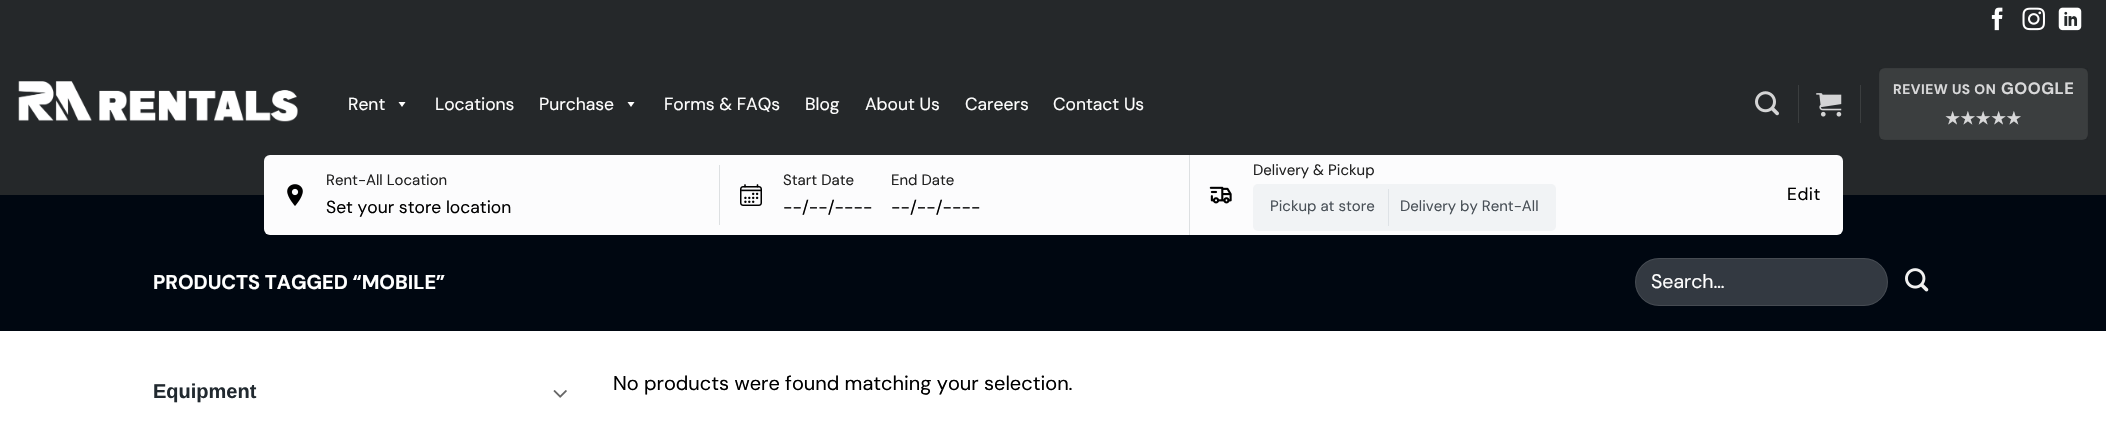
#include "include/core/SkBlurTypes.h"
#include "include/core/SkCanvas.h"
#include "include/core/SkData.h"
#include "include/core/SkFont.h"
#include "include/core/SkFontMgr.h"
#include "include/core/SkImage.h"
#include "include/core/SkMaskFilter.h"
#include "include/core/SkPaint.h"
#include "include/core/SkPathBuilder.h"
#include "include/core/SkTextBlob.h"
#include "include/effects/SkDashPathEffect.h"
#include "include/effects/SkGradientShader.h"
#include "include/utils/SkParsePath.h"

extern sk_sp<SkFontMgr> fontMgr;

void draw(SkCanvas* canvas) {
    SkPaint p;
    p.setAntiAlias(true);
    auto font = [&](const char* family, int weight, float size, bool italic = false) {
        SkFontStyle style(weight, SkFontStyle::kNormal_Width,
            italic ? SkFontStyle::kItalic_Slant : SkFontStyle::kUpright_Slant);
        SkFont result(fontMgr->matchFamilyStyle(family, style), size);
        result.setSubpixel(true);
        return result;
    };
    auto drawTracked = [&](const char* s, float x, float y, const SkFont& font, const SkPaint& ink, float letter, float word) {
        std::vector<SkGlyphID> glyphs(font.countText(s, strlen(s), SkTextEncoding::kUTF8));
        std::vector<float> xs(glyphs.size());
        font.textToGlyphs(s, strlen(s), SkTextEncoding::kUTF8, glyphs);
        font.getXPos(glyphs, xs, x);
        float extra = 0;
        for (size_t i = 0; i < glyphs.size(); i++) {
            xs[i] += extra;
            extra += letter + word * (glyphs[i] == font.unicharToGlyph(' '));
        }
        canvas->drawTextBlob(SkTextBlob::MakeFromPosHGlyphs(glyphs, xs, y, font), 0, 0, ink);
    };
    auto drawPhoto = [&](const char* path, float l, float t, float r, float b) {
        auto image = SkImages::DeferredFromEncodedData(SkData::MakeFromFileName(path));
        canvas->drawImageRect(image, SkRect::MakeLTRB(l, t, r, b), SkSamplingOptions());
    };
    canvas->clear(0xFFFFFFFF);
    p.setColor(0xFF25282A);
    canvas->drawRect(SkRect::MakeLTRB(0, 0, 2106, 195), p);
    drawPhoto("media/1.png", 1991, 7, 2003, 31);
    drawPhoto("media/2.png", 2022, 7, 2045, 31);
    drawPhoto("media/3.png", 2058, 7, 2082, 31);
    drawPhoto("media/4.png", 18, 81, 298, 122);
    auto font1 = font("DM Sans", 400, 17.5f);
    p.setColor(0xFFFFFFFF);
    canvas->drawString("Rent", 348, 110, font1, p);
    canvas->drawPath(SkPathBuilder().moveTo(405.5f, 102).lineTo(402, 107).lineTo(398.5f, 102).close().detach(), p);
    canvas->drawString("Locations", 435, 110, font1, p);
    canvas->drawString("Purchase", 539, 110, font1, p);
    canvas->drawPath(SkPathBuilder().moveTo(634.5f, 102).lineTo(631, 107).lineTo(627.5f, 102).close().detach(), p);
    {
        const struct { const char* s; float x, y; } items[] = {
            {"Forms & FAQs", 664, 110},
            {"Blog", 805, 110},
            {"About Us", 865, 110},
            {"Careers", 965, 110},
            {"Contact Us", 1053, 110},
        };
        for (auto [s, x, y] : items) {
            canvas->drawString(s, x, y, font1, p);
        }
    }
    drawPhoto("media/5.png", 1755, 91, 1779, 116);
    p.setColor(0xFF3B3E3F);
    canvas->drawRect(SkRect::MakeLTRB(1798, 85, 1799, 123), p);
    drawPhoto("media/6.png", 1816, 93, 1842, 117);
    canvas->drawRect(SkRect::MakeLTRB(1860, 85, 1861, 123), p);
    canvas->drawRoundRect(SkRect::MakeLTRB(1879, 68, 2088, 140), 6, 6, p);
    p.setStyle(SkPaint::kStroke_Style);
    p.setStrokeWidth(1);
    p.setColor(0x0D000000);
    canvas->drawRect(SkRect::MakeLTRB(1879.5f, 68.5f, 2087.5f, 139.5f), p);
    auto font2 = font("DM Sans", 700, 13.75f);
    p.setStyle(SkPaint::kFill_Style);
    p.setColor(0xFFD8D8D9);
    drawTracked("REVIEW US ON", 1893, 94, font2, p, 0.5f, 0);
    auto font3 = font("DM Sans", 700, 16.5f);
    drawTracked("GOOGLE", 2001, 94, font3, p, 0.5f, 0);
    auto font4 = font("DejaVu Sans", 700, 16.5f);
    drawTracked("★★★★★", 1945, 124, font4, p, 0.5f, 0);
    p.setColor(0xFF000711);
    canvas->drawRect(SkRect::MakeLTRB(0, 195, 2106, 331), p);
    p.setColor(0xFFFCFCFD);
    canvas->drawRoundRect(SkRect::MakeLTRB(264, 155, 1843, 235), 6, 6, p);
    drawPhoto("media/7.png", 287, 184, 303, 206);
    auto font5 = font("DM Sans", 400, 15);
    p.setColor(0xFF222222);
    canvas->drawString("Rent-All Location", 326, 185, font5, p);
    p.setColor(0xFF000000);
    canvas->drawString("Set your store location", 326, 213, font1, p);
    p.setColor(0xFFDDE0E2);
    canvas->drawRect(SkRect::MakeLTRB(719, 165, 720, 225), p);
    drawPhoto("media/8.png", 740, 184, 762, 206);
    p.setColor(0xFF222222);
    canvas->drawString("Start Date", 783, 185, font5, p);
    p.setColor(0xFF000000);
    canvas->drawString("--/--/----", 783, 213, font1, p);
    p.setColor(0xFF222222);
    canvas->drawString("End Date", 891, 185, font5, p);
    p.setColor(0xFF000000);
    canvas->drawString("--/--/----", 891, 213, font1, p);
    p.setColor(0xFFDDE0E2);
    canvas->drawRect(SkRect::MakeLTRB(1189, 155, 1190, 235), p);
    drawPhoto("media/9.png", 1209, 186, 1232, 204);
    p.setColor(0xFF222222);
    canvas->drawString("Delivery & Pickup", 1253, 175, font5, p);
    p.setColor(0xFFF1F3F5);
    canvas->drawRoundRect(SkRect::MakeLTRB(1253, 184, 1556, 231), 5, 5, p);
    p.setColor(0xFF495057);
    canvas->drawString("Pickup at store", 1270, 211, font5, p);
    p.setColor(0xFFDEE2E6);
    canvas->drawRect(SkRect::MakeLTRB(1388, 189, 1389, 226), p);
    p.setColor(0xFF495057);
    canvas->drawString("Delivery by Rent-All", 1400, 211, font5, p);
    p.setColor(0xFF000000);
    drawTracked("Edit", 1787, 200, font1, p, 0.5f, 0);
    auto font6 = font("DM Sans", 700, 20);
    p.setColor(0xFFFFFFFF);
    canvas->drawString("PRODUCTS TAGGED “MOBILE”", 153, 289, font6, p);
    p.setColor(0xFF333941);
    canvas->drawRoundRect(SkRect::MakeLTRB(1635, 258, 1888, 306), 24, 24, p);
    p.setStyle(SkPaint::kStroke_Style);
    p.setColor(0x17FFFFFF);
    canvas->drawRoundRect(SkRect::MakeLTRB(1635.5f, 258.5f, 1887.5f, 305.5f), 23.5f, 23.5f, p);
    auto font7 = font("DM Sans", 400, 19.5f);
    p.setStyle(SkPaint::kFill_Style);
    p.setColor(0xFFFFFFFF);
    canvas->drawString("Search…", 1651, 288, font7, p);
    drawPhoto("media/10.png", 1905, 268, 1929, 292);
    auto font8 = font("Liberation Sans", 700, 20);
    p.setColor(0xFF21292F);
    canvas->drawString("Equipment", 153, 398, font8, p);
    drawPhoto("media/11.png", 553, 390, 567, 398);
    auto font9 = font("DM Sans", 400, 20);
    p.setColor(0xFF000000);
    canvas->drawString("No products were found matching your selection.", 613, 390, font9, p);
}
